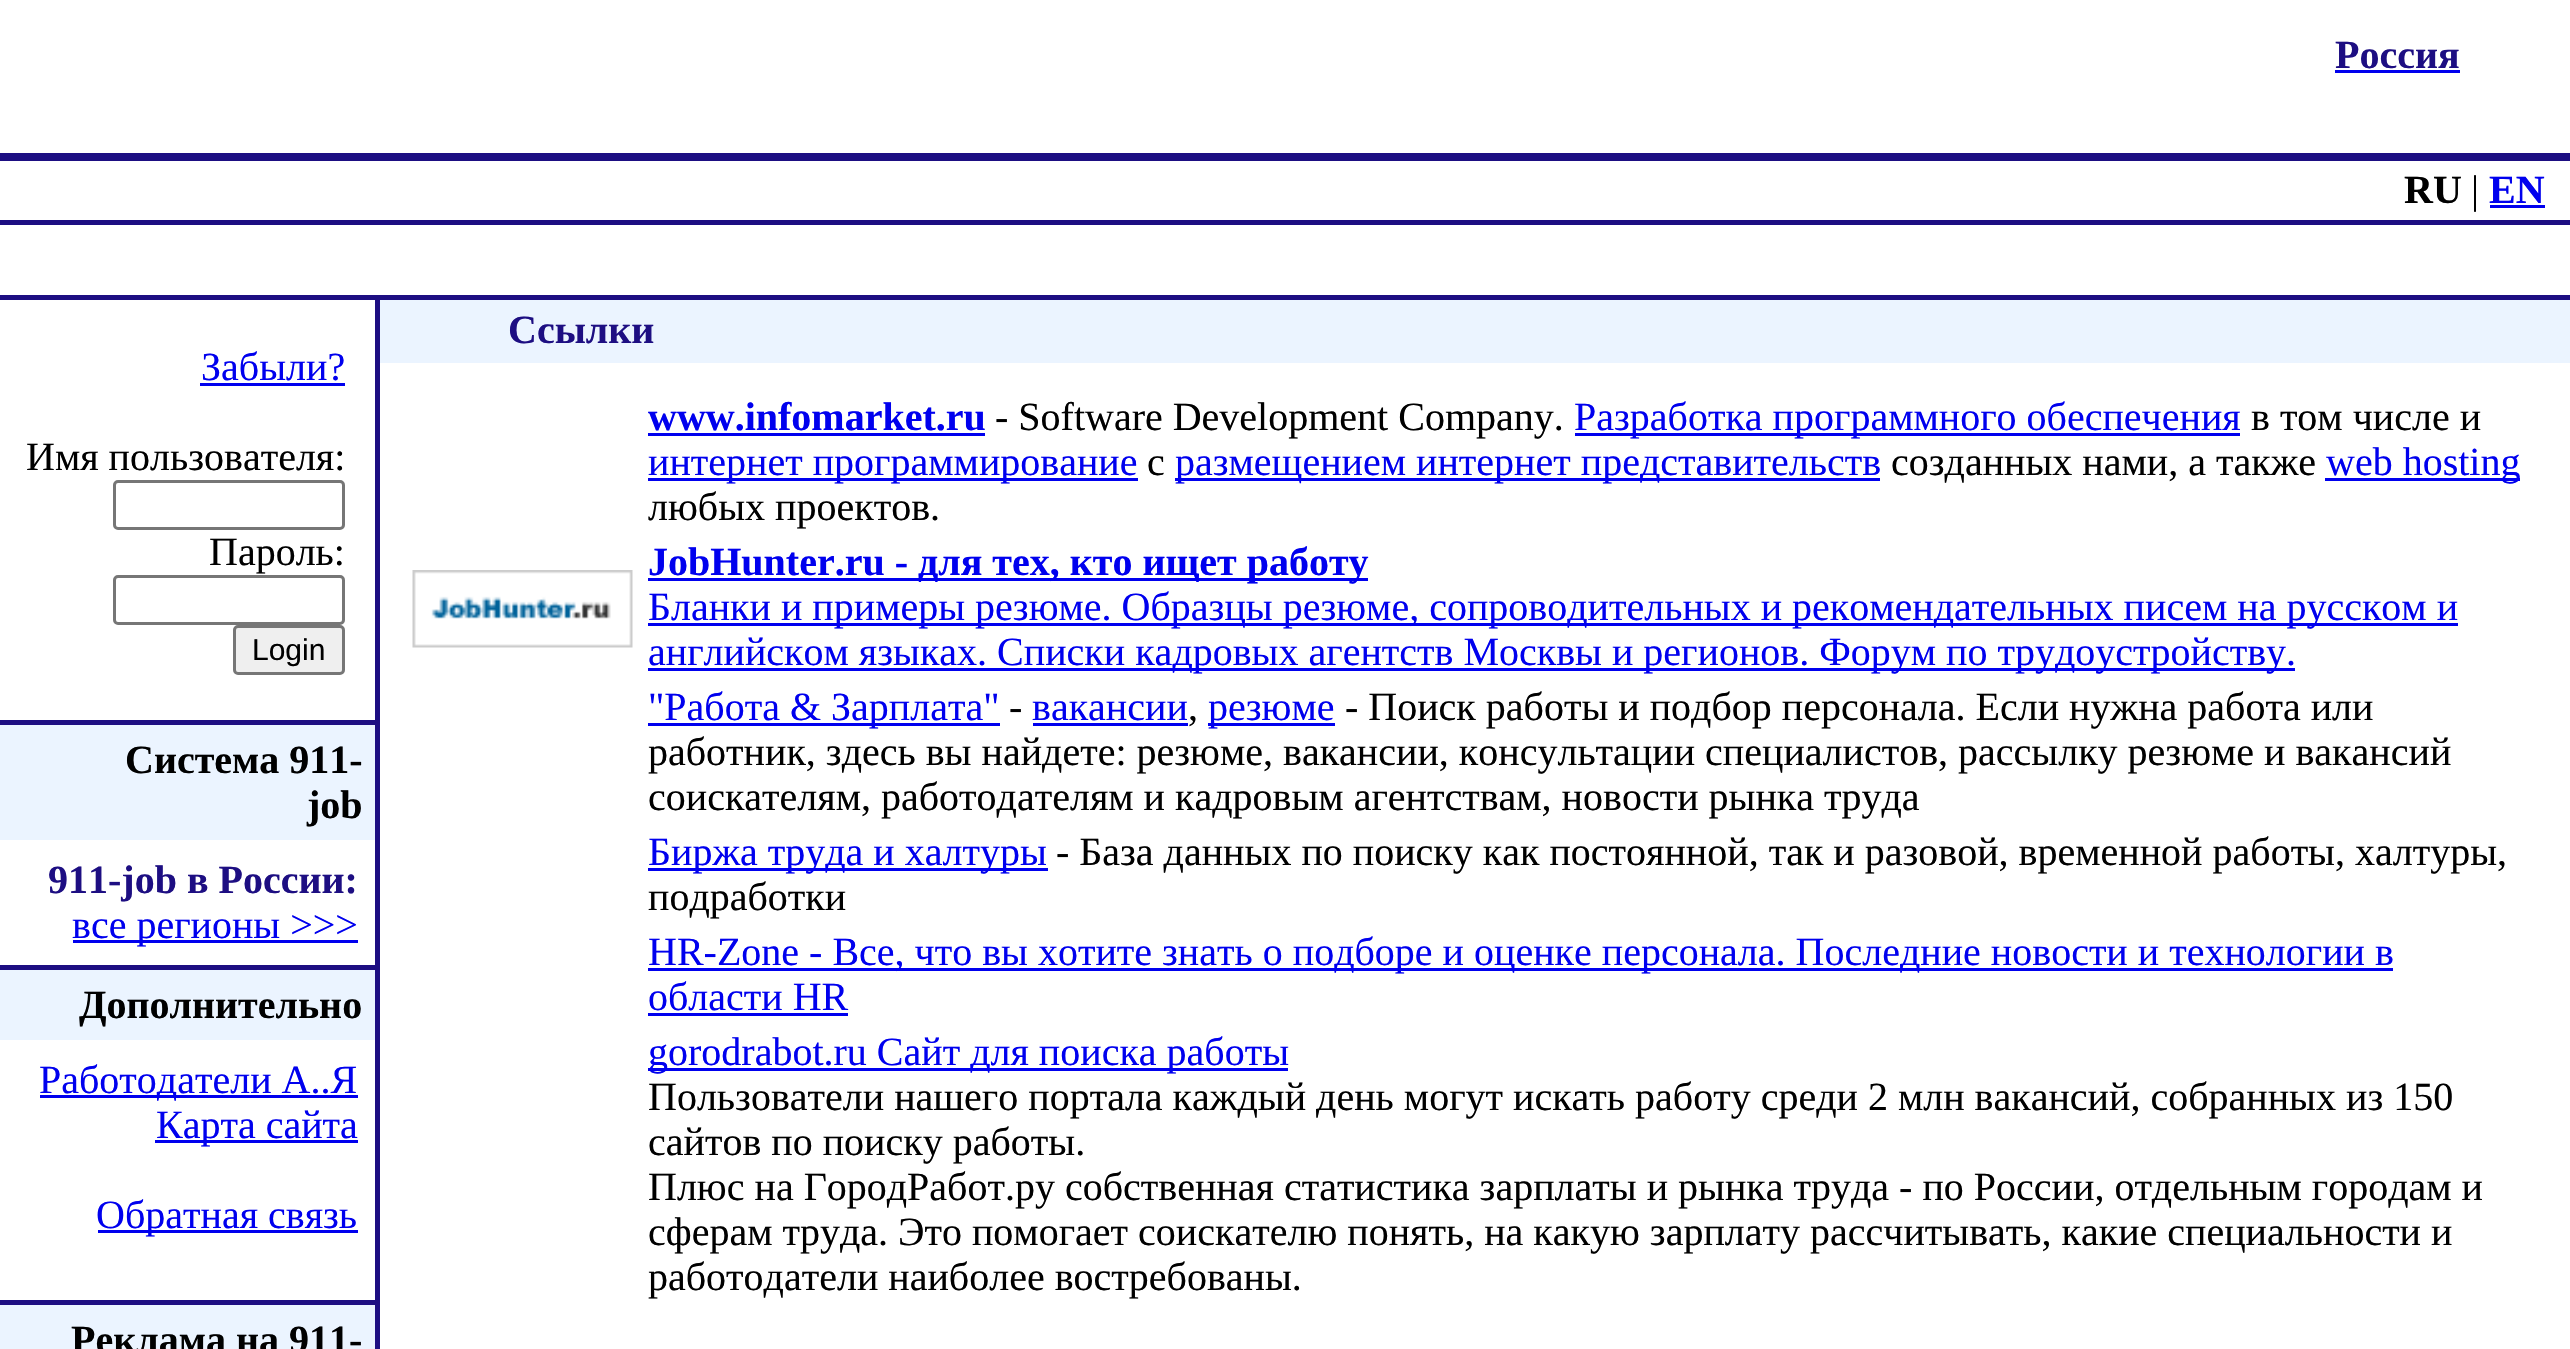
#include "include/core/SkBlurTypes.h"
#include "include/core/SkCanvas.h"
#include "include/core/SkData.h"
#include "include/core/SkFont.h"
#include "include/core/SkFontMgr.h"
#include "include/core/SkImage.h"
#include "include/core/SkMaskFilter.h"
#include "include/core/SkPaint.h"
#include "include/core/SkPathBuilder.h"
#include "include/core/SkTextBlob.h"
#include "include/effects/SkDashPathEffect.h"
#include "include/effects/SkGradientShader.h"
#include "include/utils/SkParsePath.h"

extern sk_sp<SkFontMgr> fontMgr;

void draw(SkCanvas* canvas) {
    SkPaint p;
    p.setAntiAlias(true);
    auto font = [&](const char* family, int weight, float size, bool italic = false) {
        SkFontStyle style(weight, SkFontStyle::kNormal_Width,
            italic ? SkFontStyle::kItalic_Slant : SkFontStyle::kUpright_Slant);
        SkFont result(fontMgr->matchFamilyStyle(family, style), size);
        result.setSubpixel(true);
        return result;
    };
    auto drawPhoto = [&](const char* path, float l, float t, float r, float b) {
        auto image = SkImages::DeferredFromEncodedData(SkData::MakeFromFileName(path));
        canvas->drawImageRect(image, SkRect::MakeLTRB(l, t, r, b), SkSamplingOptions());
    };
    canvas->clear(0xFFFFFFFF);
    auto font1 = font("Liberation Serif", 700, 40);
    p.setColor(0xFF1D0E82);
    canvas->drawString("Россия", 2335, 68, font1, p);
    p.setColor(0xFF0000EE);
    canvas->drawRect(SkRect::MakeLTRB(2335, 70, 2460, 73), p);
    p.setColor(0xFF1D0E82);
    canvas->drawRect(SkRect::MakeLTRB(0, 153, 2570, 161), p);
    p.setColor(0xFF000000);
    canvas->drawString("RU", 2404, 203, font1, p);
    auto font2 = font("Liberation Serif", 400, 40);
    canvas->drawString("|", 2471, 203, font2, p);
    p.setColor(0xFF0000EE);
    canvas->drawString("EN", 2489, 203, font1, p);
    {
        const struct { float l, t, r, b; SkColor color; } items[] = {
            {2490, 205, 2545, 208, 0xFF0000EE},
            {0, 220, 2570, 225, 0xFF1D0E82},
            {0, 295, 2570, 300, 0xFF1D0E82},
        };
        for (auto [l, t, r, b, color] : items) {
            p.setColor(color);
            canvas->drawRect(SkRect::MakeLTRB(l, t, r, b), p);
        }
    }
    p.setColor(0xFF0000EE);
    canvas->drawString("Забыли?", 201, 380, font2, p);
    canvas->drawRect(SkRect::MakeLTRB(200, 383, 345, 386), p);
    p.setColor(0xFF000000);
    canvas->drawString("Имя пользователя:", 26, 470, font2, p);
    p.setStyle(SkPaint::kStroke_Style);
    p.setStrokeWidth(3);
    p.setColor(0xFF767676);
    canvas->drawRoundRect(SkRect::MakeLTRB(114.5f, 481.5f, 343.5f, 528.5f), 3.5f, 3.5f, p);
    p.setStyle(SkPaint::kFill_Style);
    p.setColor(0xFF000000);
    canvas->drawString("Пароль:", 209, 565, font2, p);
    p.setStyle(SkPaint::kStroke_Style);
    p.setColor(0xFF767676);
    canvas->drawRoundRect(SkRect::MakeLTRB(114.5f, 576.5f, 343.5f, 623.5f), 3.5f, 3.5f, p);
    p.setStyle(SkPaint::kFill_Style);
    p.setColor(0xFFEFEFEF);
    canvas->drawRoundRect(SkRect::MakeLTRB(234.5f, 626.5f, 343.5f, 673.5f), 3.5f, 3.5f, p);
    p.setStyle(SkPaint::kStroke_Style);
    p.setColor(0xFF767676);
    canvas->drawRoundRect(SkRect::MakeLTRB(234.5f, 626.5f, 343.5f, 673.5f), 3.5f, 3.5f, p);
    auto font3 = font("Liberation Sans", 400, 30);
    p.setStyle(SkPaint::kFill_Style);
    p.setColor(0xFF000000);
    canvas->drawString("Login", 252, 660, font3, p);
    p.setColor(0xFF1D0E82);
    canvas->drawRect(SkRect::MakeLTRB(0, 720, 375, 725), p);
    p.setColor(0xFFEBF4FF);
    canvas->drawRect(SkRect::MakeLTRB(0, 725, 375, 840), p);
    p.setColor(0xFF000000);
    canvas->drawString("Система 911-", 125, 773, font1, p);
    canvas->drawString("job", 307, 818, font1, p);
    p.setColor(0xFF1D0E82);
    canvas->drawString("911-job в России:", 48, 893, font1, p);
    p.setColor(0xFF0000EE);
    canvas->drawRect(SkRect::MakeLTRB(73, 940, 358, 943), p);
    canvas->drawString("все регионы >>>", 72, 938, font2, p);
    p.setColor(0xFF1D0E82);
    canvas->drawRect(SkRect::MakeLTRB(0, 965, 375, 970), p);
    p.setColor(0xFFEBF4FF);
    canvas->drawRect(SkRect::MakeLTRB(0, 970, 375, 1040), p);
    p.setColor(0xFF000000);
    canvas->drawString("Дополнительно", 79, 1018, font1, p);
    p.setColor(0xFF0000EE);
    canvas->drawRect(SkRect::MakeLTRB(40, 1095, 358, 1098), p);
    canvas->drawString("Работодатели А..Я", 39, 1093, font2, p);
    canvas->drawRect(SkRect::MakeLTRB(155, 1140, 358, 1143), p);
    canvas->drawString("Карта сайта", 156, 1138, font2, p);
    canvas->drawRect(SkRect::MakeLTRB(98, 1230, 358, 1233), p);
    canvas->drawString("Обратная связь", 96, 1228, font2, p);
    p.setColor(0xFF1D0E82);
    canvas->drawRect(SkRect::MakeLTRB(0, 1300, 375, 1305), p);
    p.setColor(0xFFEBF4FF);
    canvas->drawRect(SkRect::MakeLTRB(0, 1305, 375, 1349), p);
    p.setColor(0xFF000000);
    canvas->drawString("Реклама на 911-", 71, 1353, font1, p);
    p.setColor(0xFF1D0E82);
    canvas->drawRect(SkRect::MakeLTRB(375, 300, 380, 1349), p);
    p.setColor(0xFFEBF4FF);
    canvas->drawRect(SkRect::MakeLTRB(380, 300, 2570, 363), p);
    p.setColor(0xFF1D0E82);
    canvas->drawString("Ссылки", 508, 343, font1, p);
    p.setColor(0xFF0000EE);
    canvas->drawString("www.infomarket.ru", 648, 430, font1, p);
    canvas->drawRect(SkRect::MakeLTRB(648, 433, 985, 436), p);
    p.setColor(0xFF000000);
    canvas->drawString("- Software Development Company.", 995, 430, font2, p);
    p.setColor(0xFF0000EE);
    canvas->drawRect(SkRect::MakeLTRB(1575, 433, 2240, 436), p);
    canvas->drawString("Разработка программного обеспечения", 1574, 430, font2, p);
    p.setColor(0xFF000000);
    canvas->drawString("в том числе и", 2251, 430, font2, p);
    p.setColor(0xFF0000EE);
    canvas->drawRect(SkRect::MakeLTRB(648, 478, 1138, 481), p);
    canvas->drawString("интернет программирование", 648, 475, font2, p);
    p.setColor(0xFF000000);
    canvas->drawString("с", 1147, 475, font2, p);
    p.setColor(0xFF0000EE);
    canvas->drawRect(SkRect::MakeLTRB(1175, 478, 1880, 481), p);
    canvas->drawString("размещением интернет представительств", 1175, 475, font2, p);
    p.setColor(0xFF000000);
    canvas->drawString("созданных нами, а также", 1891, 475, font2, p);
    p.setColor(0xFF0000EE);
    canvas->drawRect(SkRect::MakeLTRB(2325, 478, 2520, 481), p);
    canvas->drawString("web hosting", 2326, 475, font2, p);
    p.setColor(0xFF000000);
    canvas->drawString("любых проектов.", 648, 520, font2, p);
    drawPhoto("media/1.png", 412, 570, 633, 648);
    p.setColor(0xFF0000EE);
    canvas->drawRect(SkRect::MakeLTRB(648, 578, 1368, 581), p);
    canvas->drawString("JobHunter.ru - для тех, кто ищет работу", 648, 575, font1, p);
    canvas->drawRect(SkRect::MakeLTRB(648, 623, 2458, 626), p);
    canvas->drawString("Бланки и примеры резюме. Образцы резюме, сопроводительных и рекомендательных писем на русском и", 648, 620, font2, p);
    canvas->drawRect(SkRect::MakeLTRB(648, 668, 2295, 671), p);
    canvas->drawString("английском языках. Списки кадровых агентств Москвы и регионов. Форум по трудоустройству.", 648, 665, font2, p);
    canvas->drawRect(SkRect::MakeLTRB(648, 723, 1000, 726), p);
    canvas->drawString("\"Работа & Зарплата\"", 648, 720, font2, p);
    p.setColor(0xFF000000);
    canvas->drawString("-", 1009, 720, font2, p);
    p.setColor(0xFF0000EE);
    canvas->drawString("вакансии", 1032, 720, font2, p);
    canvas->drawRect(SkRect::MakeLTRB(1033, 723, 1188, 726), p);
    canvas->drawRect(SkRect::MakeLTRB(1208, 723, 1335, 726), p);
    canvas->drawString("резюме", 1208, 720, font2, p);
    p.setColor(0xFF000000);
    {
        const struct { const char* s; float x, y; } items[] = {
            {"- Поиск работы и подбор персонала. Если нужна работа или", 1345, 720},
            {",", 1188, 720},
            {"работник, здесь вы найдете: резюме, вакансии, консультации специалистов, рассылку резюме и вакансий", 648, 765},
            {"соискателям, работодателям и кадровым агентствам, новости рынка труда", 648, 810},
        };
        for (auto [s, x, y] : items) {
            canvas->drawString(s, x, y, font2, p);
        }
    }
    p.setColor(0xFF0000EE);
    canvas->drawRect(SkRect::MakeLTRB(648, 868, 1048, 871), p);
    canvas->drawString("Биржа труда и халтуры", 648, 865, font2, p);
    p.setColor(0xFF000000);
    canvas->drawString("- База данных по поиску как постоянной, так и разовой, временной работы, халтуры,", 1056, 865, font2, p);
    canvas->drawString("подработки", 648, 910, font2, p);
    p.setColor(0xFF0000EE);
    canvas->drawRect(SkRect::MakeLTRB(648, 968, 2393, 971), p);
    canvas->drawString("HR-Zone - Все, что вы хотите знать о подборе и оценке персонала. Последние новости и технологии в", 648, 965, font2, p);
    canvas->drawString("области HR", 648, 1010, font2, p);
    canvas->drawRect(SkRect::MakeLTRB(648, 1013, 848, 1016), p);
    canvas->drawRect(SkRect::MakeLTRB(648, 1068, 1288, 1071), p);
    canvas->drawString("gorodrabot.ru Сайт для поиска работы", 648, 1065, font2, p);
    p.setColor(0xFF000000);
    {
        const struct { const char* s; float x, y; } items[] = {
            {"Пользователи нашего портала каждый день могут искать работу среди 2 млн вакансий, собранных из 150", 648, 1110},
            {"сайтов по поиску работы.", 648, 1155},
            {"Плюс на ГородРабот.ру собственная статистика зарплаты и рынка труда - по России, отдельным городам и", 648, 1200},
            {"сферам труда. Это помогает соискателю понять, на какую зарплату рассчитывать, какие специальности и", 648, 1245},
            {"работодатели наиболее востребованы.", 648, 1290},
        };
        for (auto [s, x, y] : items) {
            canvas->drawString(s, x, y, font2, p);
        }
    }
}
